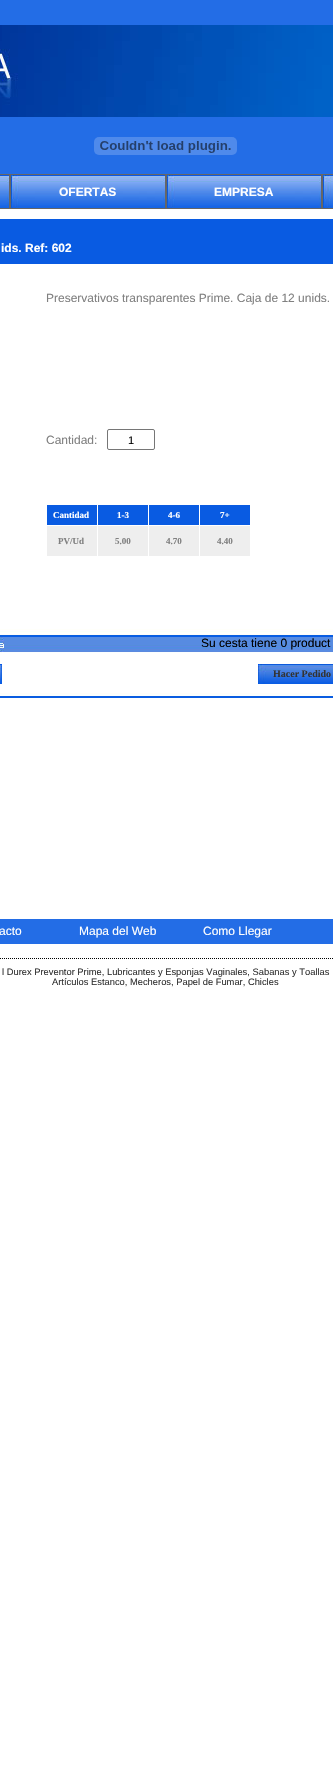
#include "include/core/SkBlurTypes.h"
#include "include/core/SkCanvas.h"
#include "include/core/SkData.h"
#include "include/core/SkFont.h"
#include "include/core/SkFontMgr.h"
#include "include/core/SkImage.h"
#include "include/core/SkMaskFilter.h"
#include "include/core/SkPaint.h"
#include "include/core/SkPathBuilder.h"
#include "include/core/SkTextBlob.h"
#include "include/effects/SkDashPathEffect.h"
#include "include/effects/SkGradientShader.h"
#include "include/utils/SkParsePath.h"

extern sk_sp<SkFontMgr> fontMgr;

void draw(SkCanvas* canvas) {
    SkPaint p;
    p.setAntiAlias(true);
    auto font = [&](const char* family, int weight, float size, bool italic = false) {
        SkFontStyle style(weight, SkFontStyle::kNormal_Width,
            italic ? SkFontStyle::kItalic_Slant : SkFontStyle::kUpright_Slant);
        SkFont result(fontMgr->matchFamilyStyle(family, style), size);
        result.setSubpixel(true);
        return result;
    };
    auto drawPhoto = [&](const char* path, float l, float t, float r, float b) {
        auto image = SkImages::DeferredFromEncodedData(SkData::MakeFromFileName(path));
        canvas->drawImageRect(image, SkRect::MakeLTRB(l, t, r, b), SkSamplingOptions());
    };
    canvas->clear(0xFFFFFFFF);
    p.setColor(0xFF236DE6);
    canvas->drawRect(SkRect::MakeLTRB(0, 0, 333, 174), p);
    drawPhoto("media/1.png", 0, 25, 333, 117);
    drawPhoto("media/2.png", 94, 137, 237, 155);
    drawPhoto("media/3.png", 0, 175, 9, 208);
    p.setStyle(SkPaint::kStroke_Style);
    p.setStrokeWidth(1);
    p.setColor(0xFF666666);
    canvas->drawRect(SkRect::MakeLTRB(-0.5f, 174.5f, 9.5f, 208.5f), p);
    drawPhoto("media/4.png", 11, 175, 165, 208);
    canvas->drawRect(SkRect::MakeLTRB(10.5f, 174.5f, 165.5f, 208.5f), p);
    auto font1 = font("Liberation Sans", 700, 12);
    p.setStyle(SkPaint::kFill_Style);
    p.setColor(0xFFFFFFFF);
    canvas->drawString("OFERTAS", 59, 196, font1, p);
    drawPhoto("media/4.png", 167, 175, 321, 208);
    p.setStyle(SkPaint::kStroke_Style);
    p.setColor(0xFF666666);
    canvas->drawRect(SkRect::MakeLTRB(166.5f, 174.5f, 321.5f, 208.5f), p);
    p.setStyle(SkPaint::kFill_Style);
    p.setColor(0xFFFFFFFF);
    canvas->drawString("EMPRESA", 214, 196, font1, p);
    drawPhoto("media/5.png", 323, 175, 333, 208);
    p.setStyle(SkPaint::kStroke_Style);
    p.setColor(0xFF666666);
    canvas->drawRect(SkRect::MakeLTRB(322.5f, 174.5f, 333.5f, 208.5f), p);
    p.setStyle(SkPaint::kFill_Style);
    p.setColor(0xFF095BE2);
    canvas->drawRect(SkRect::MakeLTRB(0, 219, 333, 264), p);
    p.setColor(0xFFFFFFFF);
    canvas->drawString("ids. Ref: 602", 1, 252, font1, p);
    auto font2 = font("Liberation Sans", 400, 12);
    p.setColor(0xFF808080);
    canvas->drawString("Preservativos transparentes Prime. Caja de 12 unids.", 46, 302, font2, p);
    canvas->drawString("Cantidad:", 46, 444, font2, p);
    p.setStyle(SkPaint::kStroke_Style);
    p.setColor(0xFF767676);
    canvas->drawRoundRect(SkRect::MakeLTRB(107.5f, 429.5f, 154.5f, 449.5f), 1.5f, 1.5f, p);
    auto font3 = font("Liberation Sans", 400, 11);
    p.setStyle(SkPaint::kFill_Style);
    p.setColor(0xFF000000);
    canvas->drawString("1", 128, 444, font3, p);
    p.setColor(0xFF095BE2);
    canvas->drawRect(SkRect::MakeLTRB(47, 505, 97, 525), p);
    auto font4 = font("Liberation Serif", 700, 9);
    p.setColor(0xFFFFFFFF);
    canvas->drawString("Cantidad", 53, 518, font4, p);
    p.setColor(0xFF095BE2);
    canvas->drawRect(SkRect::MakeLTRB(98, 505, 148, 525), p);
    p.setColor(0xFFFFFFFF);
    canvas->drawString("1-3", 117, 518, font4, p);
    p.setColor(0xFF095BE2);
    canvas->drawRect(SkRect::MakeLTRB(149, 505, 199, 525), p);
    p.setColor(0xFFFFFFFF);
    canvas->drawString("4-6", 168, 518, font4, p);
    p.setColor(0xFF095BE2);
    canvas->drawRect(SkRect::MakeLTRB(200, 505, 250, 525), p);
    p.setColor(0xFFFFFFFF);
    canvas->drawString("7+", 220, 518, font4, p);
    p.setColor(0xFFEEEEEE);
    canvas->drawRect(SkRect::MakeLTRB(47, 526, 97, 556), p);
    p.setColor(0xFF808080);
    canvas->drawString("PV/Ud", 58, 544, font4, p);
    p.setColor(0xFFEEEEEE);
    canvas->drawRect(SkRect::MakeLTRB(98, 526, 148, 556), p);
    p.setColor(0xFF808080);
    canvas->drawString("5.00", 115, 544, font4, p);
    p.setColor(0xFFEEEEEE);
    canvas->drawRect(SkRect::MakeLTRB(149, 526, 199, 556), p);
    p.setColor(0xFF808080);
    canvas->drawString("4.70", 166, 544, font4, p);
    p.setColor(0xFFEEEEEE);
    canvas->drawRect(SkRect::MakeLTRB(200, 526, 250, 556), p);
    p.setColor(0xFF808080);
    canvas->drawString("4.40", 217, 544, font4, p);
    drawPhoto("media/6.png", 0, 629, 333, 698);
    p.setColor(0xFF000000);
    canvas->drawString("Su cesta tiene 0 product", 201, 647, font2, p);
    drawPhoto("media/7.png", 0, 664, 2, 684);
    drawPhoto("media/8.png", 258, 664, 333, 684);
    auto font5 = font("Liberation Serif", 700, 10);
    p.setColor(0xFF333333);
    canvas->drawString("Hacer Pedido", 273, 677, font5, p);
    p.setColor(0xFF236DE6);
    canvas->drawRect(SkRect::MakeLTRB(0, 919, 333, 944), p);
    p.setColor(0xFFFFFFFF);
    {
        const struct { const char* s; float x, y; } items[] = {
            {"acto", -1, 935},
            {"Mapa del Web", 79, 935},
            {"Como Llegar", 203, 935},
        };
        for (auto [s, x, y] : items) {
            canvas->drawString(s, x, y, font2, p);
        }
    }
    p.setStyle(SkPaint::kStroke_Style);
    p.setColor(0xFF000000);
    p.setPathEffect(SkDashPathEffect::Make({{1, 1}}, 0));
    canvas->drawPath(SkPathBuilder().moveTo(-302, 958.5f).lineTo(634, 958.5f).detach(), p);
    p.setPathEffect(nullptr);
    auto font6 = font("Liberation Sans", 400, 9.35f);
    p.setStyle(SkPaint::kFill_Style);
    p.setColor(0xFF333333);
    canvas->drawString("l Durex Preventor Prime, Lubricantes y Esponjas Vaginales, Sabanas y Toallas", 2, 975, font6, p);
    canvas->drawString("Artículos Estanco, Mecheros, Papel de Fumar, Chicles", 52, 985, font6, p);
}
